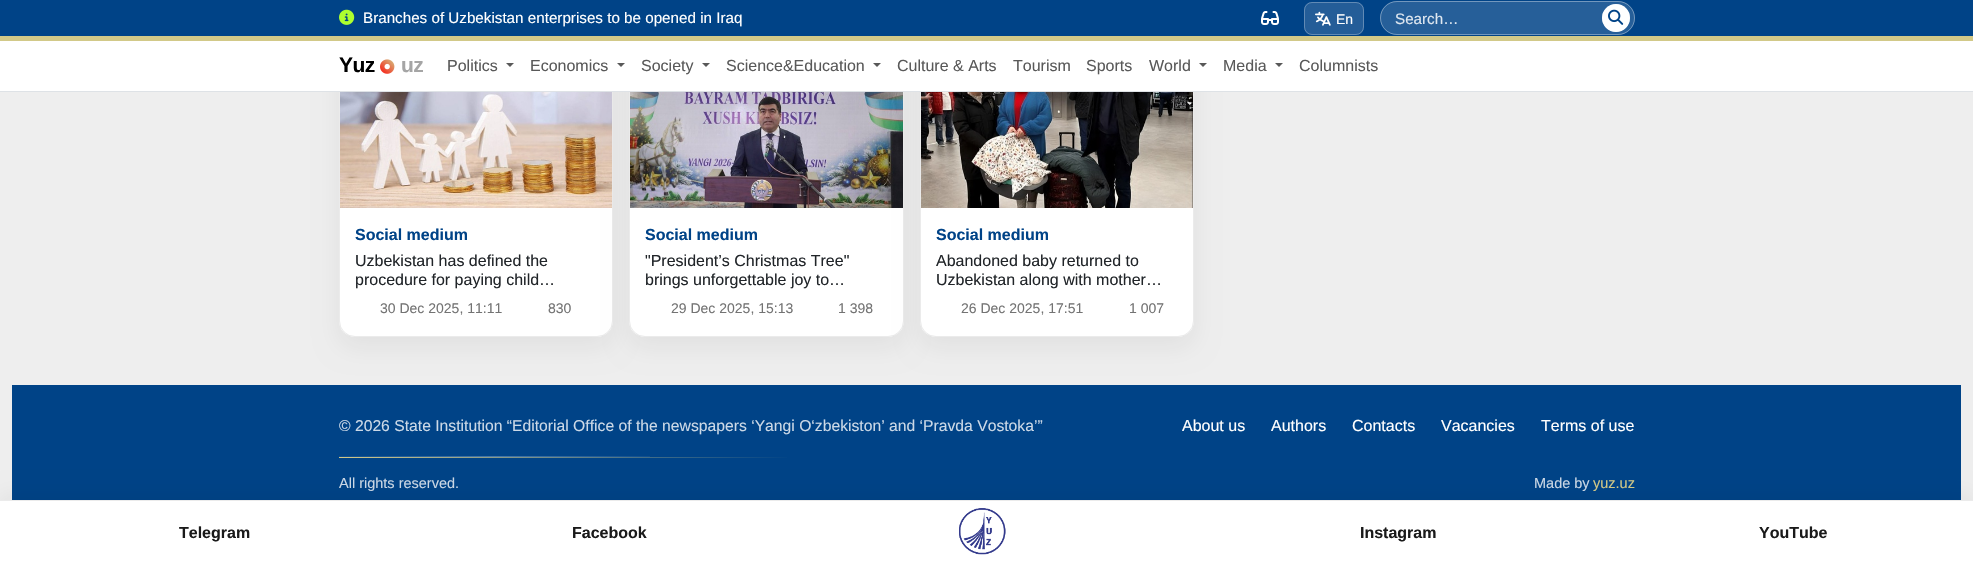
#include "include/core/SkBlurTypes.h"
#include "include/core/SkCanvas.h"
#include "include/core/SkData.h"
#include "include/core/SkFont.h"
#include "include/core/SkFontMgr.h"
#include "include/core/SkImage.h"
#include "include/core/SkMaskFilter.h"
#include "include/core/SkPaint.h"
#include "include/core/SkPathBuilder.h"
#include "include/core/SkTextBlob.h"
#include "include/effects/SkDashPathEffect.h"
#include "include/effects/SkGradientShader.h"
#include "include/utils/SkParsePath.h"

extern sk_sp<SkFontMgr> fontMgr;

void draw(SkCanvas* canvas) {
    SkPaint p;
    p.setAntiAlias(true);
    auto font = [&](const char* family, int weight, float size, bool italic = false) {
        SkFontStyle style(weight, SkFontStyle::kNormal_Width,
            italic ? SkFontStyle::kItalic_Slant : SkFontStyle::kUpright_Slant);
        SkFont result(fontMgr->matchFamilyStyle(family, style), size);
        result.setSubpixel(true);
        return result;
    };
    auto drawTracked = [&](const char* s, float x, float y, const SkFont& font, const SkPaint& ink, float letter, float word) {
        std::vector<SkGlyphID> glyphs(font.countText(s, strlen(s), SkTextEncoding::kUTF8));
        std::vector<float> xs(glyphs.size());
        font.textToGlyphs(s, strlen(s), SkTextEncoding::kUTF8, glyphs);
        font.getXPos(glyphs, xs, x);
        float extra = 0;
        for (size_t i = 0; i < glyphs.size(); i++) {
            xs[i] += extra;
            extra += letter + word * (glyphs[i] == font.unicharToGlyph(' '));
        }
        canvas->drawTextBlob(SkTextBlob::MakeFromPosHGlyphs(glyphs, xs, y, font), 0, 0, ink);
    };
    auto drawPhoto = [&](const char* path, float l, float t, float r, float b) {
        auto image = SkImages::DeferredFromEncodedData(SkData::MakeFromFileName(path));
        canvas->drawImageRect(image, SkRect::MakeLTRB(l, t, r, b), SkSamplingOptions());
    };
    canvas->clear(0xFFEEEEEE);
    p.setColor(0x0F000000);
    p.setMaskFilter(SkMaskFilter::MakeBlur(kNormal_SkBlurStyle, 12));
    canvas->drawRoundRect(SkRect::MakeLTRB(339, 64, 613, 347), 16, 16, p);
    p.setMaskFilter(nullptr);
    p.setColor(0xFFFFFFFF);
    canvas->drawRoundRect(SkRect::MakeLTRB(339, 54, 613, 337), 16, 16, p);
    p.setStyle(SkPaint::kStroke_Style);
    p.setStrokeWidth(1);
    p.setColor(0x14000000);
    canvas->drawRoundRect(SkRect::MakeLTRB(339.5f, 54.5f, 612.5f, 336.5f), 15.5f, 15.5f, p);
    drawPhoto("media/6.png", 340, 92, 612, 208);
    p.setStyle(SkPaint::kFill_Style);
    p.setColor(0x0F000000);
    p.setMaskFilter(SkMaskFilter::MakeBlur(kNormal_SkBlurStyle, 12));
    canvas->drawRoundRect(SkRect::MakeLTRB(629, 64, 904, 347), 16, 16, p);
    p.setMaskFilter(nullptr);
    p.setColor(0xFFFFFFFF);
    canvas->drawRoundRect(SkRect::MakeLTRB(629, 54, 904, 337), 16, 16, p);
    p.setStyle(SkPaint::kStroke_Style);
    p.setColor(0x14000000);
    canvas->drawRoundRect(SkRect::MakeLTRB(629.5f, 54.5f, 903.5f, 336.5f), 15.5f, 15.5f, p);
    drawPhoto("media/7.png", 630, 92, 903, 208);
    p.setStyle(SkPaint::kFill_Style);
    p.setColor(0x0F000000);
    p.setMaskFilter(SkMaskFilter::MakeBlur(kNormal_SkBlurStyle, 12));
    canvas->drawRoundRect(SkRect::MakeLTRB(920, 64, 1194, 347), 16, 16, p);
    p.setMaskFilter(nullptr);
    p.setColor(0xFFFFFFFF);
    canvas->drawRoundRect(SkRect::MakeLTRB(920, 54, 1194, 337), 16, 16, p);
    p.setStyle(SkPaint::kStroke_Style);
    p.setColor(0x14000000);
    canvas->drawRoundRect(SkRect::MakeLTRB(920.5f, 54.5f, 1193.5f, 336.5f), 15.5f, 15.5f, p);
    p.setStyle(SkPaint::kFill_Style);
    p.setColor(0xFFFFFFFF);
    canvas->drawRect(SkRect::MakeLTRB(0, 41, 1973, 91), p);
    p.setColor(0xFF004387);
    canvas->drawRect(SkRect::MakeLTRB(0, 0, 1973, 36), p);
    drawPhoto("media/1.png", 339, 9, 355, 25);
    auto font1 = font("Liberation Sans", 400, 15.2f);
    p.setColor(0xFFFFFFFF);
    canvas->drawString("Branches of Uzbekistan enterprises to be opened in Iraq", 363, 23, font1, p);
    drawPhoto("media/2.png", 1261, 11, 1279, 25);
    p.setColor(0xFF245D98);
    canvas->drawRoundRect(SkRect::MakeLTRB(1304, 2, 1364, 35), 8, 8, p);
    p.setStyle(SkPaint::kStroke_Style);
    p.setColor(0x47FFFFFF);
    canvas->drawRoundRect(SkRect::MakeLTRB(1304.5f, 2.5f, 1363.5f, 34.5f), 7.5f, 7.5f, p);
    drawPhoto("media/3.png", 1315, 11, 1331, 26);
    auto font2 = font("Liberation Sans", 400, 14);
    p.setStyle(SkPaint::kFill_Style);
    p.setColor(0xFFFFFFFF);
    canvas->drawString("En", 1336, 24, font2, p);
    p.setColor(0xFF265F99);
    canvas->drawRoundRect(SkRect::MakeLTRB(1380, 1, 1635, 35), 17, 17, p);
    p.setStyle(SkPaint::kStroke_Style);
    p.setColor(0x59FFFFFF);
    canvas->drawRoundRect(SkRect::MakeLTRB(1380.5f, 1.5f, 1634.5f, 34.5f), 16.5f, 16.5f, p);
    p.setStyle(SkPaint::kFill_Style);
    p.setColor(0xFFDEE7F0);
    canvas->drawString("Search…", 1395, 24, font1, p);
    p.setColor(0xFFFFFFFF);
    canvas->drawCircle(1616, 18, 14, p);
    p.setStyle(SkPaint::kStroke_Style);
    p.setColor(0x99FFFFFF);
    canvas->drawCircle(1616, 18, 13.5f, p);
    drawPhoto("media/4.png", 1608, 9, 1624, 25);
    p.setStyle(SkPaint::kFill_Style);
    p.setColor(0xFFD2C988);
    canvas->drawRect(SkRect::MakeLTRB(0, 36, 1973, 41), p);
    p.setColor(0xFFDEE2E6);
    canvas->drawRect(SkRect::MakeLTRB(0, 91, 1973, 92), p);
    auto font3 = font("Liberation Sans", 700, 21);
    p.setColor(0xFF000000);
    drawTracked("Yuz", 339, 72, font3, p, -0.5f, 0);
    drawPhoto("media/5.png", 380, 59, 395, 74);
    p.setColor(0xFFA5A5A5);
    drawTracked("uz", 401, 72, font3, p, -0.5f, 0);
    auto font4 = font("Liberation Sans", 400, 16);
    p.setColor(0xFF595959);
    canvas->drawString("Politics", 447, 71, font4, p);
    canvas->drawPath(SkPathBuilder().moveTo(506, 63).lineTo(514, 63).lineTo(510, 67).close().detach(), p);
    canvas->drawString("Economics", 530, 71, font4, p);
    canvas->drawPath(SkPathBuilder().moveTo(617, 63).lineTo(625, 63).lineTo(621, 67).close().detach(), p);
    canvas->drawString("Society", 641, 71, font4, p);
    canvas->drawPath(SkPathBuilder().moveTo(702, 63).lineTo(710, 63).lineTo(706, 67).close().detach(), p);
    canvas->drawString("Science&Education", 726, 71, font4, p);
    canvas->drawPath(SkPathBuilder().moveTo(873, 63).lineTo(881, 63).lineTo(877, 67).close().detach(), p);
    {
        const struct { const char* s; float x, y; } items[] = {
            {"Culture & Arts", 897, 71},
            {"Tourism", 1013, 71},
            {"Sports", 1086, 71},
            {"World", 1149, 71},
        };
        for (auto [s, x, y] : items) {
            canvas->drawString(s, x, y, font4, p);
        }
    }
    canvas->drawPath(SkPathBuilder().moveTo(1199, 63).lineTo(1207, 63).lineTo(1203, 67).close().detach(), p);
    canvas->drawString("Media", 1223, 71, font4, p);
    canvas->drawPath(SkPathBuilder().moveTo(1275, 63).lineTo(1283, 63).lineTo(1279, 67).close().detach(), p);
    canvas->drawString("Columnists", 1299, 71, font4, p);
    auto font5 = font("Liberation Sans", 700, 16);
    p.setColor(0xFF004387);
    canvas->drawString("Social medium", 355, 240, font5, p);
    p.setColor(0xFF212529);
    canvas->drawString("Uzbekistan has defined the", 355, 266, font4, p);
    canvas->drawString("procedure for paying child…", 355, 285, font4, p);
    p.setColor(0xFF737373);
    canvas->drawString("30 Dec 2025, 11:11", 380, 313, font2, p);
    canvas->drawString("830", 548, 313, font2, p);
    p.setColor(0xFF004387);
    canvas->drawString("Social medium", 645, 240, font5, p);
    p.setColor(0xFF212529);
    canvas->drawString("\"President’s Christmas Tree\"", 645, 266, font4, p);
    canvas->drawString("brings unforgettable joy to…", 645, 285, font4, p);
    p.setColor(0xFF737373);
    canvas->drawString("29 Dec 2025, 15:13", 671, 313, font2, p);
    canvas->drawString("1 398", 838, 313, font2, p);
    drawPhoto("media/8.png", 921, 92, 1193, 208);
    p.setColor(0xFF004387);
    canvas->drawString("Social medium", 936, 240, font5, p);
    p.setColor(0xFF212529);
    canvas->drawString("Abandoned baby returned to", 936, 266, font4, p);
    canvas->drawString("Uzbekistan along with mother…", 936, 285, font4, p);
    p.setColor(0xFF737373);
    canvas->drawString("26 Dec 2025, 17:51", 961, 313, font2, p);
    canvas->drawString("1 007", 1129, 313, font2, p);
    p.setColor(0xFF004387);
    canvas->drawRect(SkRect::MakeLTRB(12, 385, 1961, 500), p);
    auto font6 = font("Liberation Sans", 400, 15.7f);
    p.setColor(0xFFCCD9E7);
    canvas->drawString("© 2026 State Institution “Editorial Office of the newspapers ‘Yangi O‘zbekiston’ and ‘Pravda Vostoka’”", 339, 431, font6, p);
    p.setColor(0xFFFFFFFF);
    {
        const struct { const char* s; float x, y; } items[] = {
            {"About us", 1182, 431},
            {"Authors", 1271, 431},
            {"Contacts", 1352, 431},
            {"Vacancies", 1441, 431},
            {"Terms of use", 1541, 431},
        };
        for (auto [s, x, y] : items) {
            canvas->drawString(s, x, y, font4, p);
        }
    }
    {
        const SkColor colors[] = {0xFFD2C988, 0xFF004387};
        const float stops[] = {0, 0.35f};
        const SkPoint ends[] = {{339, 458}, {1635, 457}};
        p.setShader(SkGradientShader::MakeLinear(ends, colors, stops, 2, SkTileMode::kClamp));
        p.setAlpha(255);
    }
    canvas->drawRect(SkRect::MakeLTRB(339, 457, 787, 458), p);
    {
        const SkColor colors[] = {0xFF0F4E8E, 0xFF4778A9, 0xFF0F4E8E, 0xFF004387};
        const float stops[] = {0, 0.12f, 0.24f, 0.24f};
        const SkPoint ends[] = {{339, 457}, {1635, 456}};
        p.setShader(SkGradientShader::MakeLinear(ends, colors, stops, 4, SkTileMode::kClamp));
        p.setAlpha(255);
    }
    canvas->drawRect(SkRect::MakeLTRB(339, 456, 650, 457), p);
    auto font7 = font("Liberation Sans", 400, 14.5f);
    p.setShader(nullptr);
    p.setColor(0xFFCCD9E7);
    canvas->drawString("All rights reserved.", 339, 488, font7, p);
    canvas->drawString("Made by", 1534, 488, font7, p);
    p.setColor(0xFFD2C988);
    canvas->drawString("yuz.uz", 1593, 488, font7, p);
    p.setColor(0x0F000000);
    p.setMaskFilter(SkMaskFilter::MakeBlur(kNormal_SkBlurStyle, 11));
    canvas->drawRect(SkRect::MakeLTRB(0, 496, 1973, 560), p);
    p.setMaskFilter(nullptr);
    p.setColor(0xFFFFFFFF);
    canvas->drawRect(SkRect::MakeLTRB(0, 501, 1973, 564), p);
    p.setColor(0xFFEBEBEB);
    canvas->drawRect(SkRect::MakeLTRB(0, 500, 1973, 501), p);
    p.setColor(0xFF1A1A1A);
    canvas->drawString("Telegram", 179, 538, font5, p);
    canvas->drawString("Facebook", 572, 538, font5, p);
    drawPhoto("media/9.png", 959, 508, 1006, 555);
    canvas->drawString("Instagram", 1360, 538, font5, p);
    canvas->drawString("YouTube", 1759, 538, font5, p);
}
